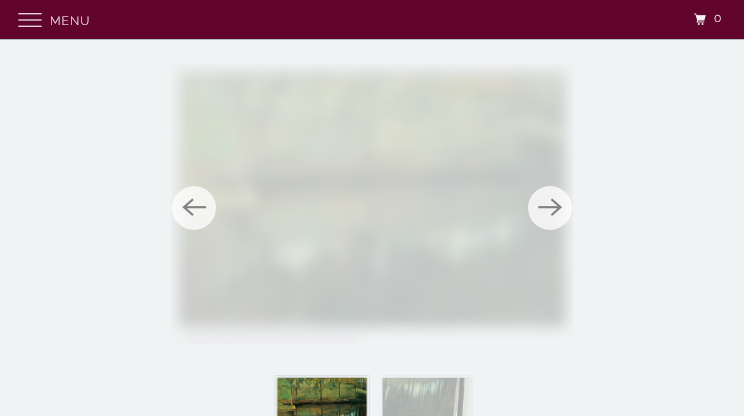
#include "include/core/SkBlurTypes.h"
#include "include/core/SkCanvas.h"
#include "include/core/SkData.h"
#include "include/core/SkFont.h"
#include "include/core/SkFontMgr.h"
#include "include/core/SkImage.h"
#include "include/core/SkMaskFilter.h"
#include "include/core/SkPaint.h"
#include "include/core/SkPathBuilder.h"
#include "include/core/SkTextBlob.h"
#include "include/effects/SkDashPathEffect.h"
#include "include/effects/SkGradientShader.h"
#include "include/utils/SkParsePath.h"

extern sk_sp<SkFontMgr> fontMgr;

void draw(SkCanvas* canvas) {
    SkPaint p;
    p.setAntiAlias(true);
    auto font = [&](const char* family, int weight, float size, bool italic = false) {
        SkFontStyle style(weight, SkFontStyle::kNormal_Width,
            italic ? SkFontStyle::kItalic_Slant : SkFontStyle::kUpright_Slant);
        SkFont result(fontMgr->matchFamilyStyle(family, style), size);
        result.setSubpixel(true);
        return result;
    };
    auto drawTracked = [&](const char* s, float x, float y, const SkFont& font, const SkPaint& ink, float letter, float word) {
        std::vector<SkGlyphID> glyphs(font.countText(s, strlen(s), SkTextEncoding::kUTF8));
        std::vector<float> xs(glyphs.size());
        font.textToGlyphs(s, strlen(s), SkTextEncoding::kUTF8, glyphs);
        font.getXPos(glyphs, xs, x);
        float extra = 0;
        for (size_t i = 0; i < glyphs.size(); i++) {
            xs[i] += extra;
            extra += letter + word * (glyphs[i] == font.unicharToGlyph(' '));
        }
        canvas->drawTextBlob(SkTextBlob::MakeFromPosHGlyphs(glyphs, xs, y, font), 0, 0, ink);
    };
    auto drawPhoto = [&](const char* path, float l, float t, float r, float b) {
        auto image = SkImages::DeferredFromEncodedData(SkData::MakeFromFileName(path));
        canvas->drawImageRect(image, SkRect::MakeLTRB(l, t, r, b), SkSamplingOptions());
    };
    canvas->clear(0xFFF0F3F3);
    p.setColor(0xFF61052C);
    canvas->drawRect(SkRect::MakeLTRB(0, 0, 744, 39), p);
    p.setColor(0xFFB0BEBE);
    canvas->drawRect(SkRect::MakeLTRB(0, 39, 744, 40), p);
    drawPhoto("media/1.png", 18, 13, 42, 27);
    auto font1 = font("Raleway", 300, 12);
    p.setColor(0xFFF4F4F4);
    drawTracked("MENU", 50, 25, font1, p, 1, 0);
    drawPhoto("media/2.png", 694, 13, 706, 25);
    drawTracked("0", 714, 22, font1, p, 1, 0);
    drawPhoto("media/3.png", 171, 64, 573, 344);
    p.setColor(0xBFFFFFFF);
    canvas->drawCircle(194, 208, 22, p);
    drawPhoto("media/4.png", 182, 198, 207, 216);
    canvas->drawCircle(550, 208, 22, p);
    drawPhoto("media/5.png", 538, 198, 562, 216);
    drawPhoto("media/6.png", 274, 375, 370, 416);
    drawPhoto("media/7.png", 380, 375, 474, 416);
}
